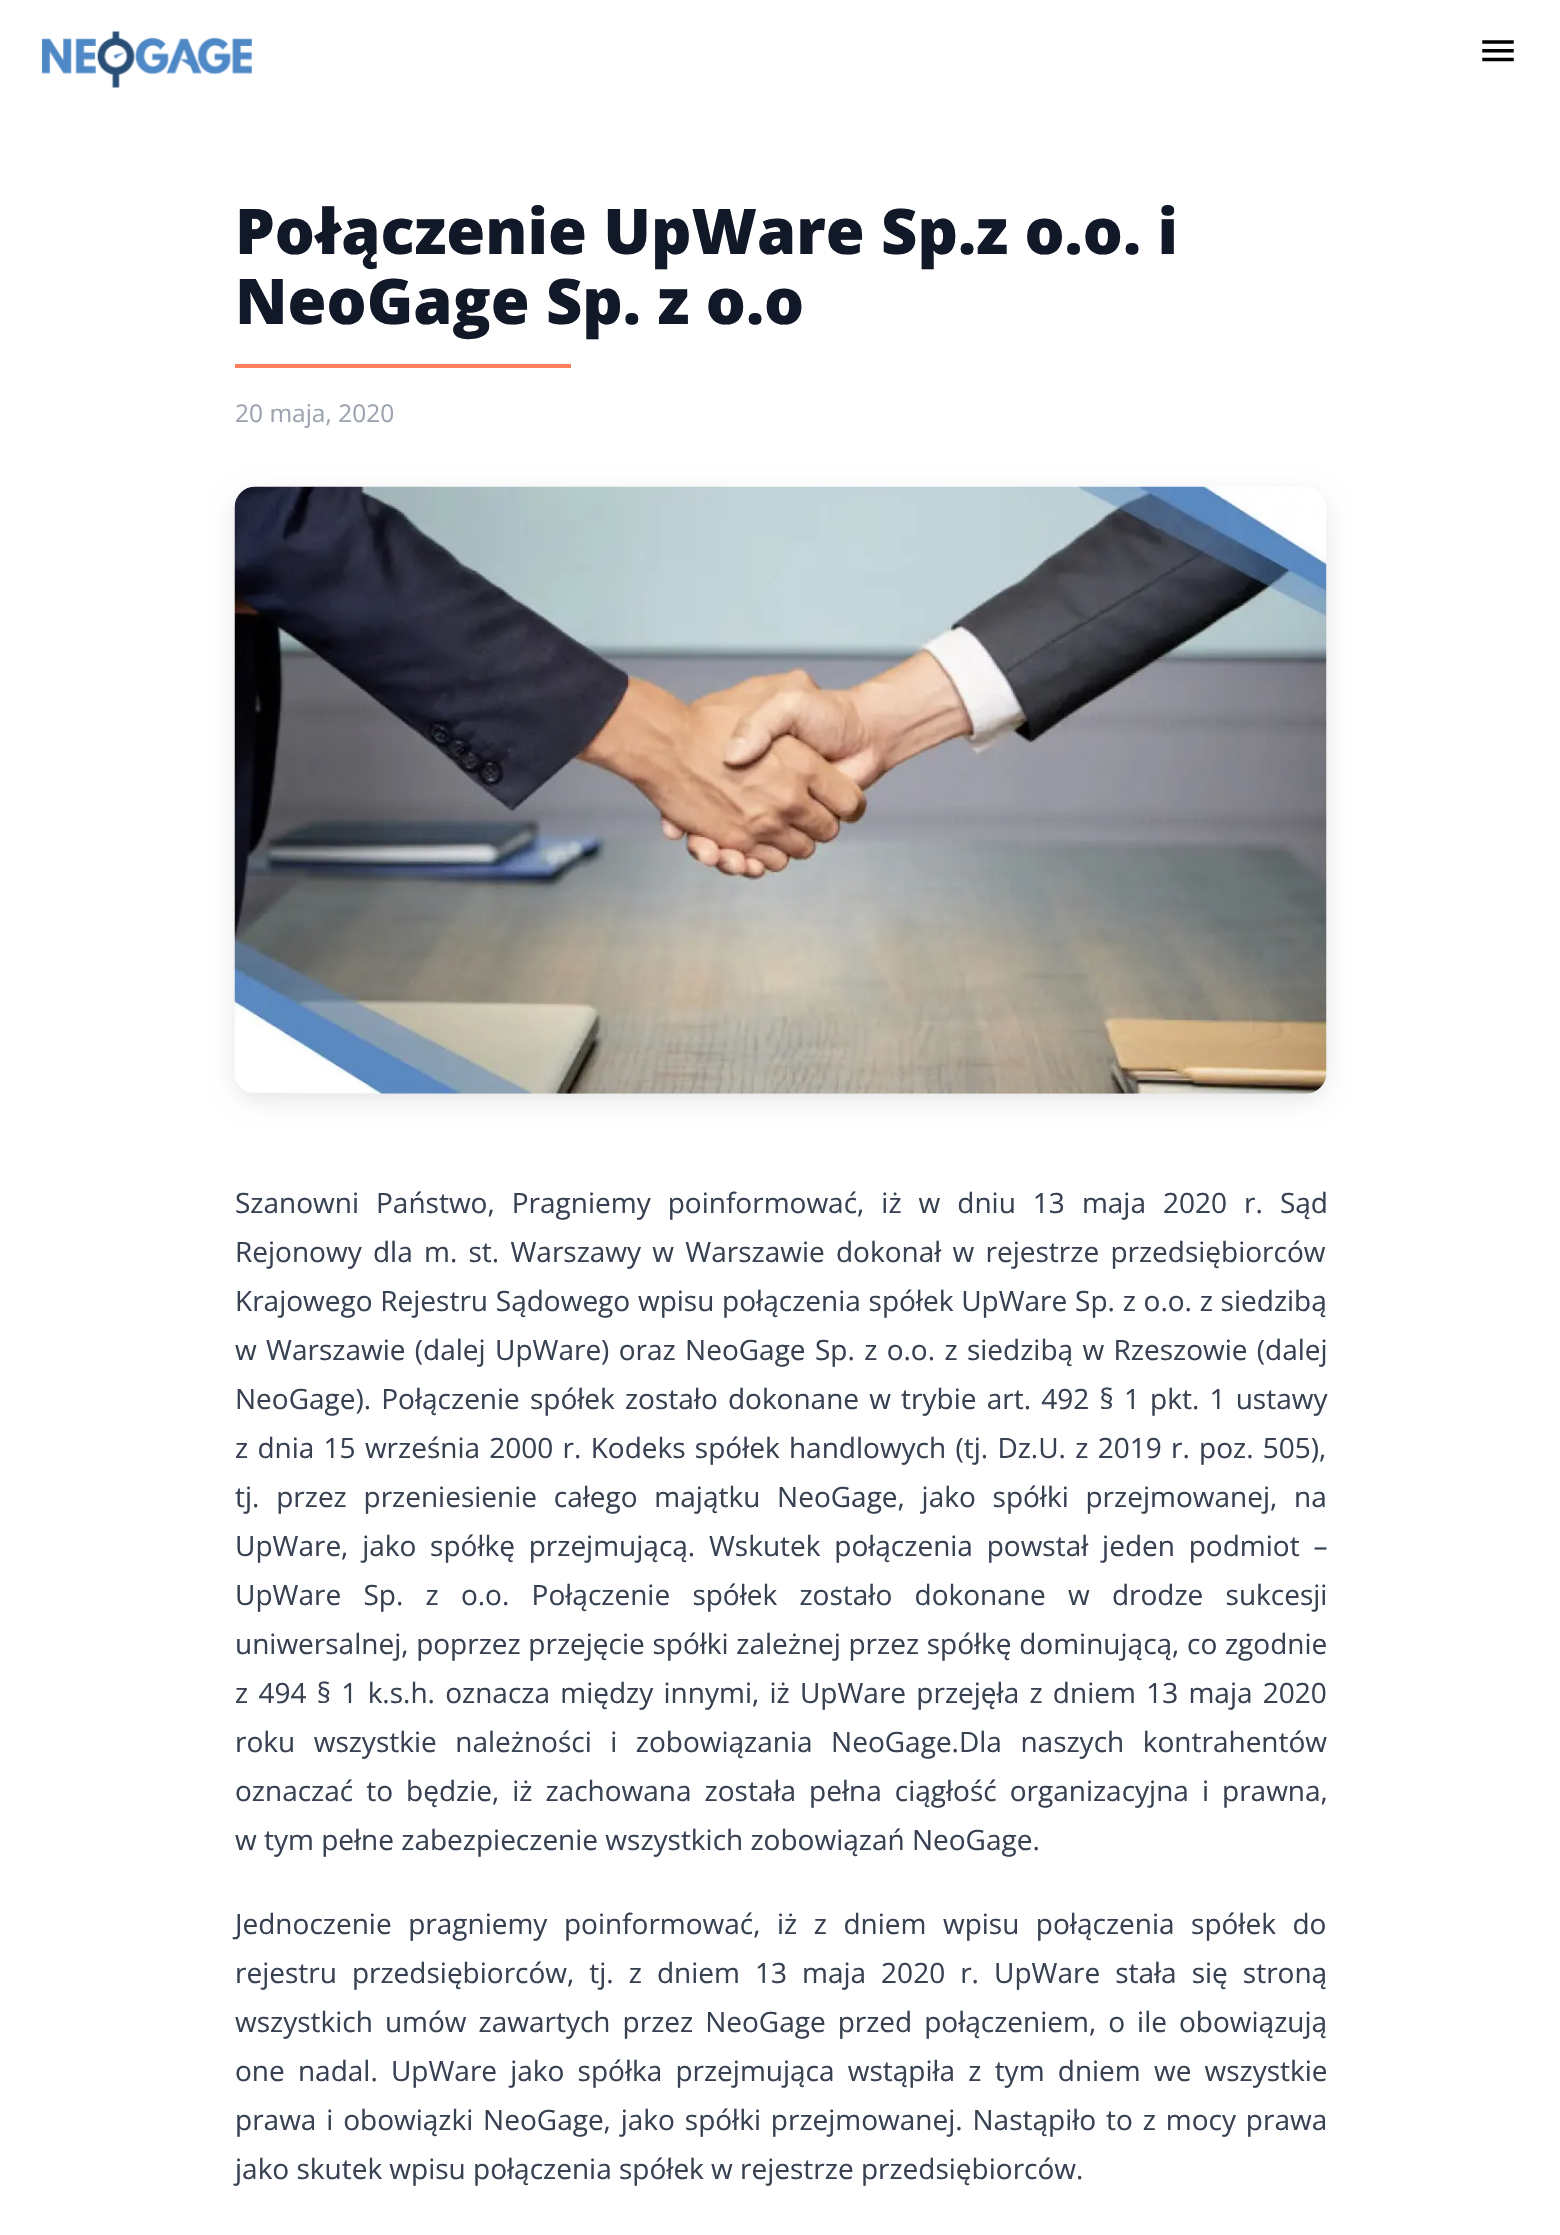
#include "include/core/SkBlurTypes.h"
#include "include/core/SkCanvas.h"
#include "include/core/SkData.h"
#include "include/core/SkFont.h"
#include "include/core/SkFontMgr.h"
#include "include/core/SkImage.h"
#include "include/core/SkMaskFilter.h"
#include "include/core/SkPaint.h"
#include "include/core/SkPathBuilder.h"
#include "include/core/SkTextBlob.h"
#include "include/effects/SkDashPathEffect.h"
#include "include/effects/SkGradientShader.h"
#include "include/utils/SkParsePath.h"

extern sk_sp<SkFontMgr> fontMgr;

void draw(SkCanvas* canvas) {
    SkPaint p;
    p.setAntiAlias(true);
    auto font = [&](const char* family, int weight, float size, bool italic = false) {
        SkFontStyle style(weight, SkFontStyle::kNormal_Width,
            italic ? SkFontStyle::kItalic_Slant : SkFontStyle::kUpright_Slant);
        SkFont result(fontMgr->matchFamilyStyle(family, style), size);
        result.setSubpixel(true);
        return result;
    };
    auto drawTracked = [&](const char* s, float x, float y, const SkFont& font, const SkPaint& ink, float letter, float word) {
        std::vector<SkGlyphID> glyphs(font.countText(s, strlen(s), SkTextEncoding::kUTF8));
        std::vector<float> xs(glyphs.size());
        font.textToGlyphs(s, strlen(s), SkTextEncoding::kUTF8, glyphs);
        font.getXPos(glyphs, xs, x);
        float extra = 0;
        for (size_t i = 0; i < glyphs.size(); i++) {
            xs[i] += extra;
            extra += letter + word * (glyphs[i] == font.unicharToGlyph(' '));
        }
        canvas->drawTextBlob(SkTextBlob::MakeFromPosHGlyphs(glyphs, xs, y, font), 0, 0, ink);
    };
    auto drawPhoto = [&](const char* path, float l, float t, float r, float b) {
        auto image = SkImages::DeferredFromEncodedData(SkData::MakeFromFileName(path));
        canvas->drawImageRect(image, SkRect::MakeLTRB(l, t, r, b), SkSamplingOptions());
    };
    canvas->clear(0xFFFFFFFF);
    drawPhoto("media/1.png", 42, 31, 252, 88);
    drawPhoto("media/2.png", 1482, 40, 1514, 62);
    auto font1 = font("Open Sans", 800, 63);
    p.setColor(0xFF111827);
    canvas->drawString("Połączenie UpWare Sp.z o.o. i", 235, 254, font1, p);
    canvas->drawString("NeoGage Sp. z o.o", 235, 324, font1, p);
    p.setColor(0xFFFE805C);
    canvas->drawRect(SkRect::MakeLTRB(235, 364, 571, 368), p);
    auto font2 = font("Open Sans", 400, 24.5f);
    p.setColor(0xFF9CA3AF);
    canvas->drawString("20 maja, 2020", 235, 422, font2, p);
    p.setColor(0x1F000000);
    p.setMaskFilter(SkMaskFilter::MakeBlur(kNormal_SkBlurStyle, 13));
    canvas->drawRoundRect(SkRect::MakeLTRB(238, 497, 1323, 1097), 18, 18, p);
    p.setMaskFilter(nullptr);
    drawPhoto("media/3.png", 234, 486, 1327, 1094);
    auto font3 = font("Open Sans", 400, 28);
    p.setColor(0xFF374151);
    drawTracked("Szanowni Państwo, Pragniemy poinformować, iż w dniu 13 maja 2020 r. Sąd", 235, 1213, font3, p, 0, 9.75f);
    drawTracked("Rejonowy dla m. st. Warszawy w Warszawie dokonał w rejestrze przedsiębiorców", 235, 1262, font3, p, 0, 4);
    drawTracked("Krajowego Rejestru Sądowego wpisu połączenia spółek UpWare Sp. z o.o. z siedzibą", 235, 1311, font3, p, 0, 0.5f);
    drawTracked("w Warszawie (dalej UpWare) oraz NeoGage Sp. z o.o. z siedzibą w Rzeszowie (dalej", 235, 1360, font3, p, 0, 2.1f);
    drawTracked("NeoGage). Połączenie spółek zostało dokonane w trybie art. 492 § 1 pkt. 1 ustawy", 235, 1409, font3, p, 0, 2.9f);
    drawTracked("z dnia 15 września 2000 r. Kodeks spółek handlowych (tj. Dz.U. z 2019 r. poz. 505),", 235, 1458, font3, p, 0, 2);
    drawTracked("tj. przez przeniesienie całego majątku NeoGage, jako spółki przejmowanej, na", 235, 1507, font3, p, 0, 9.5f);
    drawTracked("UpWare, jako spółkę przejmującą. Wskutek połączenia powstał jeden podmiot –", 235, 1556, font3, p, 0, 6.5f);
    drawTracked("UpWare Sp. z o.o. Połączenie spółek zostało dokonane w drodze sukcesji", 235, 1605, font3, p, 0, 15);
    drawTracked("uniwersalnej, poprzez przejęcie spółki zależnej przez spółkę dominującą, co zgodnie", 235, 1654, font3, p, 0, 0.4f);
    drawTracked("z 494 § 1 k.s.h. oznacza między innymi, iż UpWare przejęła z dniem 13 maja 2020", 235, 1703, font3, p, 0, 3);
    drawTracked("roku wszystkie należności i zobowiązania NeoGage.Dla naszych kontrahentów", 235, 1752, font3, p, 0, 11.25f);
    drawTracked("oznaczać to będzie, iż zachowana została pełna ciągłość organizacyjna i prawna,", 235, 1801, font3, p, 0, 5.75f);
    canvas->drawString("w tym pełne zabezpieczenie wszystkich zobowiązań NeoGage.", 235, 1850, font3, p);
    drawTracked("Jednoczenie pragniemy poinformować, iż z dniem wpisu połączenia spółek do", 235, 1934, font3, p, 0, 9.25f);
    drawTracked("rejestru przedsiębiorców, tj. z dniem 13 maja 2020 r. UpWare stała się stroną", 235, 1983, font3, p, 0, 7.75f);
    drawTracked("wszystkich umów zawartych przez NeoGage przed połączeniem, o ile obowiązują", 235, 2032, font3, p, 0, 4.75f);
    drawTracked("one nadal. UpWare jako spółka przejmująca wstąpiła z tym dniem we wszystkie", 235, 2081, font3, p, 0, 5.9f);
    drawTracked("prawa i obowiązki NeoGage, jako spółki przejmowanej. Nastąpiło to z mocy prawa", 235, 2130, font3, p, 0, 2.6f);
    canvas->drawString("jako skutek wpisu połączenia spółek w rejestrze przedsiębiorców.", 235, 2179, font3, p);
}
